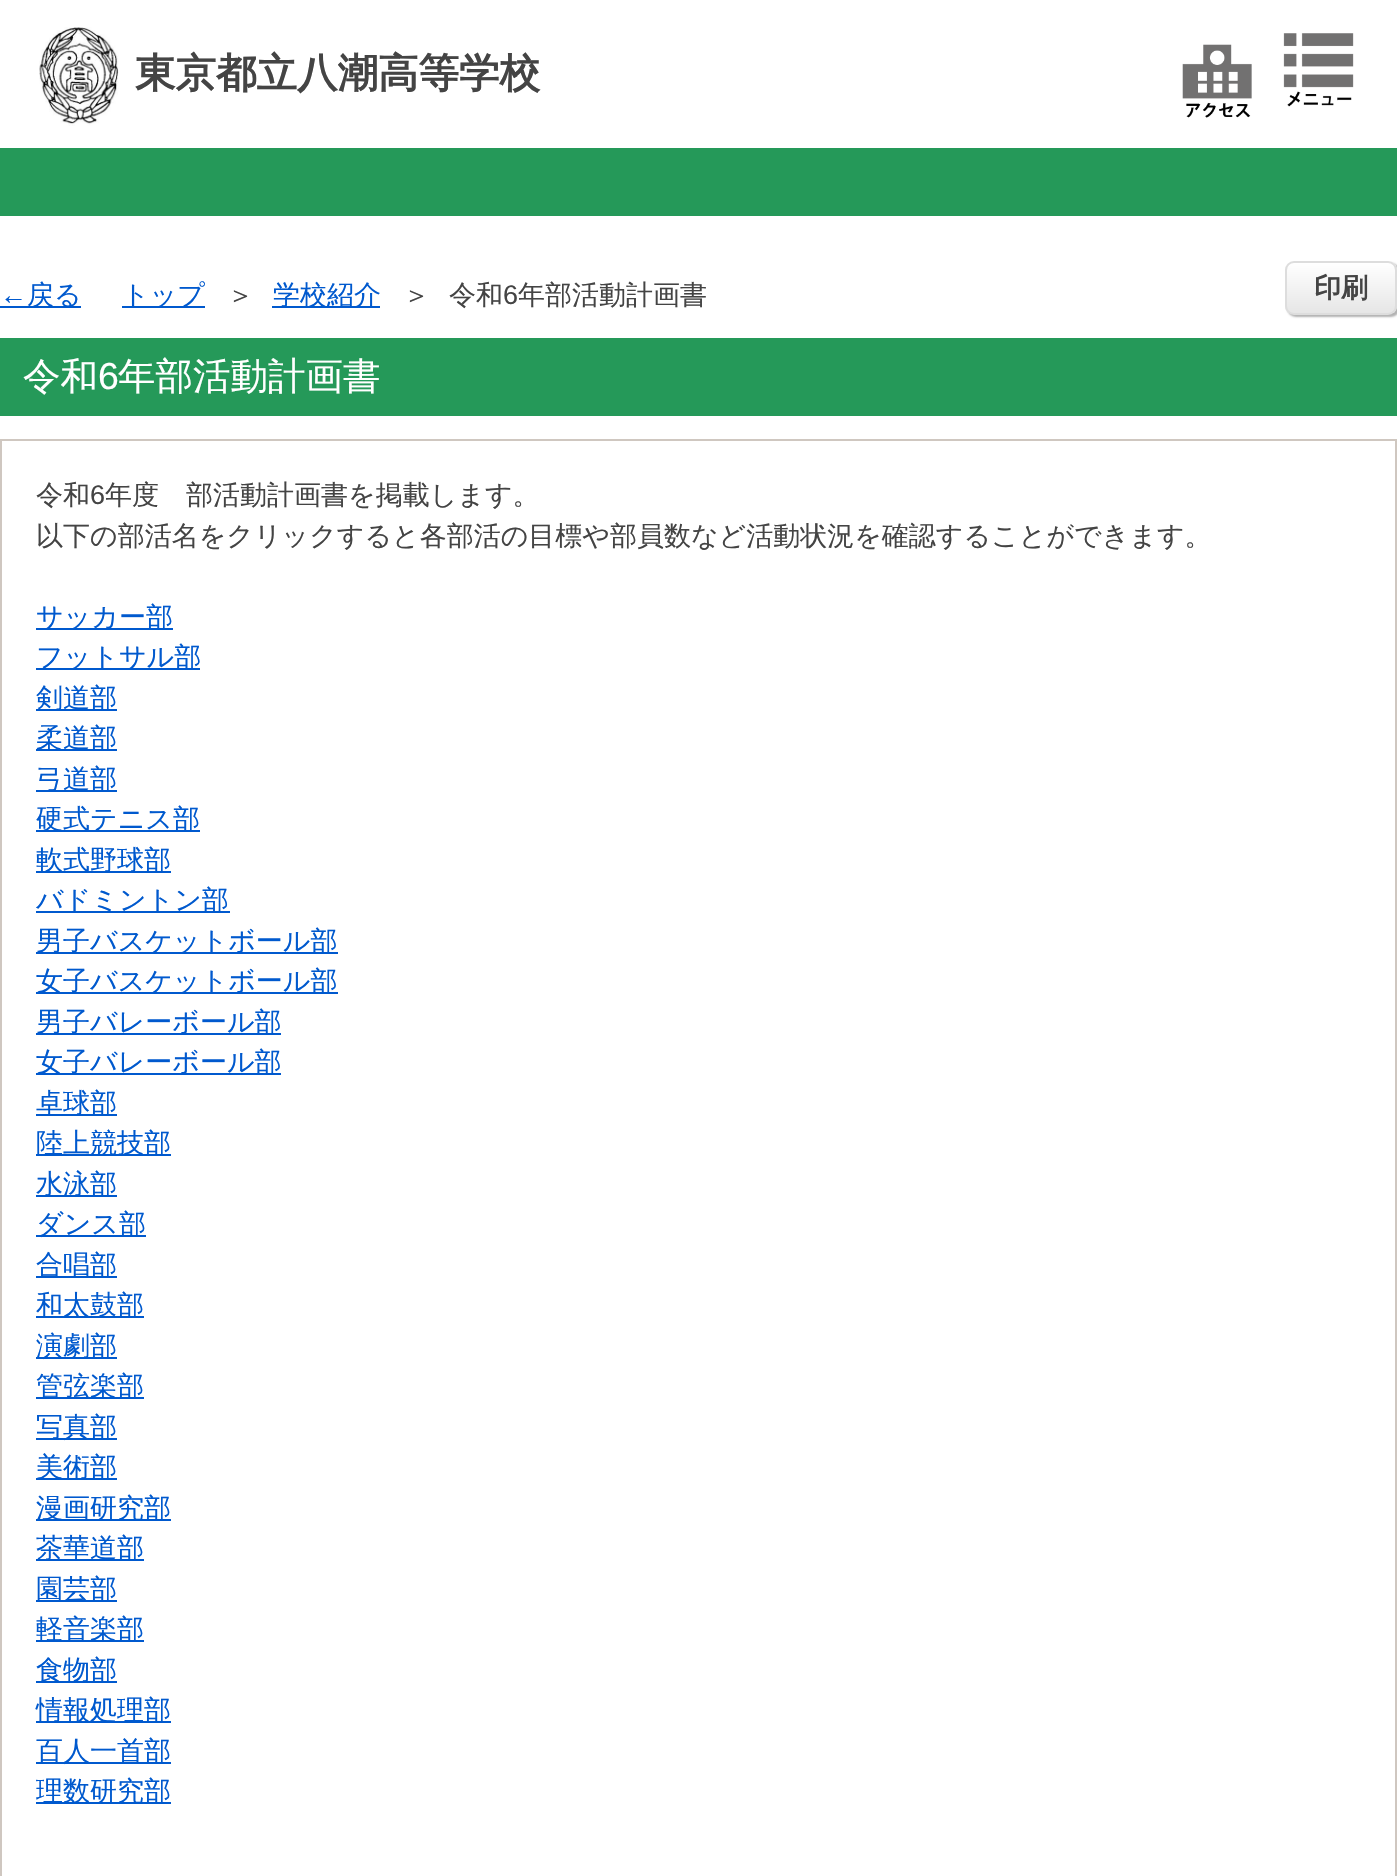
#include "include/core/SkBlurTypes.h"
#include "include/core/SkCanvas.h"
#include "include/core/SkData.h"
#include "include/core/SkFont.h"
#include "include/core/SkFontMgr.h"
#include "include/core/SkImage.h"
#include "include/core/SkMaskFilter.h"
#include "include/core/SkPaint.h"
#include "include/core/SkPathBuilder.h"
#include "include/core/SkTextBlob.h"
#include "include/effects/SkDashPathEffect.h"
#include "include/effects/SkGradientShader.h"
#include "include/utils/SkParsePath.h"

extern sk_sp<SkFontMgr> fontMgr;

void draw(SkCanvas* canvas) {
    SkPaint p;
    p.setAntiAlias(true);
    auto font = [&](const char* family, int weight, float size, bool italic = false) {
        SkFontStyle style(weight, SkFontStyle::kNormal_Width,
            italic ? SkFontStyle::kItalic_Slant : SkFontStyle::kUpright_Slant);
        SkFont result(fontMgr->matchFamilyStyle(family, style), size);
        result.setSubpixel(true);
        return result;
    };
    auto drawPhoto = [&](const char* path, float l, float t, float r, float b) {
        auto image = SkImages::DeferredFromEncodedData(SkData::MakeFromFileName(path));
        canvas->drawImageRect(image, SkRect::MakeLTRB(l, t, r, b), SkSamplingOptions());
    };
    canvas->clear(0xFFFFFFFF);
    p.setColor(0xFF259959);
    canvas->drawRect(SkRect::MakeLTRB(0, 148, 1397, 216), p);
    drawPhoto("media/1.png", 39, 27, 119, 126);
    auto font1 = font("WenQuanYi Zen Hei", 700, 40.5f);
    p.setColor(0xFF444444);
    canvas->drawString("東京都立八潮高等学校", 135, 87, font1, p);
    drawPhoto("media/2.png", 1182, 44, 1252, 118);
    drawPhoto("media/3.png", 1283, 33, 1354, 107);
    auto font2 = font("Liberation Sans", 400, 27);
    p.setColor(0xFF0059CE);
    canvas->drawString("←", 0, 304, font2, p);
    canvas->drawRect(SkRect::MakeLTRB(0, 306, 81, 308), p);
    auto font3 = font("WenQuanYi Zen Hei", 500, 27);
    canvas->drawString("戻る", 27, 304, font3, p);
    canvas->drawRect(SkRect::MakeLTRB(122, 306, 205, 308), p);
    canvas->drawString("トップ", 122, 304, font3, p);
    p.setColor(0xFF444444);
    canvas->drawString("＞", 227, 304, font3, p);
    p.setColor(0xFF0059CE);
    canvas->drawRect(SkRect::MakeLTRB(272, 306, 380, 308), p);
    canvas->drawString("学校紹介", 273, 304, font3, p);
    p.setColor(0xFF444444);
    canvas->drawString("＞", 403, 304, font3, p);
    canvas->drawString("令和", 449, 304, font3, p);
    canvas->drawString("6", 503, 304, font2, p);
    canvas->drawString("年部活動計画書", 518, 304, font3, p);
    p.setColor(0x4D000000);
    p.setMaskFilter(SkMaskFilter::MakeBlur(kNormal_SkBlurStyle, 1));
    canvas->drawRoundRect(SkRect::MakeLTRB(1287, 263, 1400, 317), 9, 9, p);
    p.setMaskFilter(nullptr);
    canvas->save();
    canvas->clipPath(SkPathBuilder().moveTo(1294, 261).lineTo(1388, 261).cubicTo(1393, 261, 1397, 265, 1397, 270).lineTo(1397, 306).cubicTo(1397, 311, 1393, 315, 1388, 315).lineTo(1294, 315).cubicTo(1289, 315, 1285, 311, 1285, 306).lineTo(1285, 270).cubicTo(1285, 265, 1289, 261, 1294, 261).close().detach(), true);
    {
        const SkColor colors[] = {0xFFFFFFFF, 0xFFE6E6E6};
        const float stops[] = {0, 1};
        const SkPoint ends[] = {{1341, 263}, {1341, 313}};
        p.setShader(SkGradientShader::MakeLinear(ends, colors, stops, 2, SkTileMode::kClamp));
        p.setAlpha(255);
    }
    canvas->drawRect(SkRect::MakeLTRB(1285, 263, 1397, 313), p);
    canvas->restore();
    p.setStyle(SkPaint::kStroke_Style);
    p.setStrokeWidth(2);
    p.setShader(nullptr);
    p.setColor(0xFFDDDDDD);
    canvas->drawRoundRect(SkRect::MakeLTRB(1286, 262, 1396, 314), 8, 8, p);
    auto font4 = font("WenQuanYi Zen Hei", 700, 27);
    p.setStyle(SkPaint::kFill_Style);
    p.setColor(0xFF444444);
    canvas->drawString("印刷", 1314, 297, font4, p);
    p.setColor(0xFF259959);
    canvas->drawRect(SkRect::MakeLTRB(0, 338, 1397, 416), p);
    auto font5 = font("WenQuanYi Zen Hei", 500, 37.5f);
    p.setColor(0xFFFFFFFF);
    canvas->drawString("令和", 23, 389, font5, p);
    auto font6 = font("Liberation Sans", 400, 37.5f);
    canvas->drawString("6", 98, 389, font6, p);
    canvas->drawString("年部活動計画書", 118, 389, font5, p);
    p.setStyle(SkPaint::kStroke_Style);
    p.setColor(0xFFCFC7C0);
    canvas->drawRect(SkRect::MakeLTRB(1, 440, 1396, 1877), p);
    p.setStyle(SkPaint::kFill_Style);
    p.setColor(0xFF444444);
    canvas->drawString("令和", 36, 504, font3, p);
    canvas->drawString("6", 90, 504, font2, p);
    canvas->drawString("年度　部活動計画書を掲載します。", 105, 504, font3, p);
    canvas->drawString("以下の部活名をクリックすると各部活の目標や部員数など活動状況を確認することができます。", 36, 545, font3, p);
    p.setColor(0xFF0059CE);
    canvas->drawRect(SkRect::MakeLTRB(36, 628, 173, 630), p);
    canvas->drawString("サッカー部", 36, 626, font3, p);
    canvas->drawRect(SkRect::MakeLTRB(36, 668, 200, 670), p);
    canvas->drawString("フットサル部", 36, 666, font3, p);
    canvas->drawRect(SkRect::MakeLTRB(36, 709, 117, 711), p);
    canvas->drawString("剣道部", 36, 707, font3, p);
    canvas->drawRect(SkRect::MakeLTRB(36, 749, 117, 751), p);
    canvas->drawString("柔道部", 36, 747, font3, p);
    canvas->drawRect(SkRect::MakeLTRB(36, 790, 117, 792), p);
    canvas->drawString("弓道部", 36, 788, font3, p);
    canvas->drawRect(SkRect::MakeLTRB(36, 830, 200, 832), p);
    canvas->drawString("硬式テニス部", 36, 828, font3, p);
    canvas->drawRect(SkRect::MakeLTRB(36, 871, 171, 873), p);
    canvas->drawString("軟式野球部", 36, 869, font3, p);
    canvas->drawRect(SkRect::MakeLTRB(36, 911, 230, 913), p);
    canvas->drawString("バドミントン部", 36, 909, font3, p);
    canvas->drawRect(SkRect::MakeLTRB(36, 952, 338, 954), p);
    canvas->drawString("男子バスケットボール部", 36, 950, font3, p);
    canvas->drawRect(SkRect::MakeLTRB(36, 992, 338, 994), p);
    canvas->drawString("女子バスケットボール部", 36, 990, font3, p);
    canvas->drawRect(SkRect::MakeLTRB(36, 1033, 281, 1035), p);
    canvas->drawString("男子バレーボール部", 36, 1031, font3, p);
    canvas->drawRect(SkRect::MakeLTRB(36, 1073, 281, 1075), p);
    canvas->drawString("女子バレーボール部", 36, 1071, font3, p);
    canvas->drawRect(SkRect::MakeLTRB(36, 1114, 117, 1116), p);
    canvas->drawString("卓球部", 36, 1112, font3, p);
    canvas->drawRect(SkRect::MakeLTRB(36, 1154, 171, 1156), p);
    canvas->drawString("陸上競技部", 36, 1152, font3, p);
    canvas->drawRect(SkRect::MakeLTRB(36, 1195, 117, 1197), p);
    canvas->drawString("水泳部", 36, 1193, font3, p);
    canvas->drawRect(SkRect::MakeLTRB(36, 1235, 146, 1237), p);
    canvas->drawString("ダンス部", 36, 1233, font3, p);
    canvas->drawRect(SkRect::MakeLTRB(36, 1276, 117, 1278), p);
    canvas->drawString("合唱部", 36, 1274, font3, p);
    canvas->drawRect(SkRect::MakeLTRB(36, 1316, 144, 1318), p);
    canvas->drawString("和太鼓部", 36, 1314, font3, p);
    canvas->drawRect(SkRect::MakeLTRB(36, 1357, 117, 1359), p);
    canvas->drawString("演劇部", 36, 1355, font3, p);
    canvas->drawRect(SkRect::MakeLTRB(36, 1397, 144, 1399), p);
    canvas->drawString("管弦楽部", 36, 1395, font3, p);
    canvas->drawRect(SkRect::MakeLTRB(36, 1438, 117, 1440), p);
    canvas->drawString("写真部", 36, 1436, font3, p);
    canvas->drawRect(SkRect::MakeLTRB(36, 1478, 117, 1480), p);
    canvas->drawString("美術部", 36, 1476, font3, p);
    canvas->drawRect(SkRect::MakeLTRB(36, 1519, 171, 1521), p);
    canvas->drawString("漫画研究部", 36, 1517, font3, p);
    canvas->drawRect(SkRect::MakeLTRB(36, 1559, 144, 1561), p);
    canvas->drawString("茶華道部", 36, 1557, font3, p);
    canvas->drawRect(SkRect::MakeLTRB(36, 1600, 117, 1602), p);
    canvas->drawString("園芸部", 36, 1598, font3, p);
    canvas->drawRect(SkRect::MakeLTRB(36, 1640, 144, 1642), p);
    canvas->drawString("軽音楽部", 36, 1638, font3, p);
    canvas->drawRect(SkRect::MakeLTRB(36, 1681, 117, 1683), p);
    canvas->drawString("食物部", 36, 1679, font3, p);
    canvas->drawRect(SkRect::MakeLTRB(36, 1721, 171, 1723), p);
    canvas->drawString("情報処理部", 36, 1719, font3, p);
    canvas->drawRect(SkRect::MakeLTRB(36, 1762, 171, 1764), p);
    canvas->drawString("百人一首部", 36, 1760, font3, p);
    canvas->drawRect(SkRect::MakeLTRB(36, 1802, 171, 1804), p);
    canvas->drawString("理数研究部", 36, 1800, font3, p);
}
